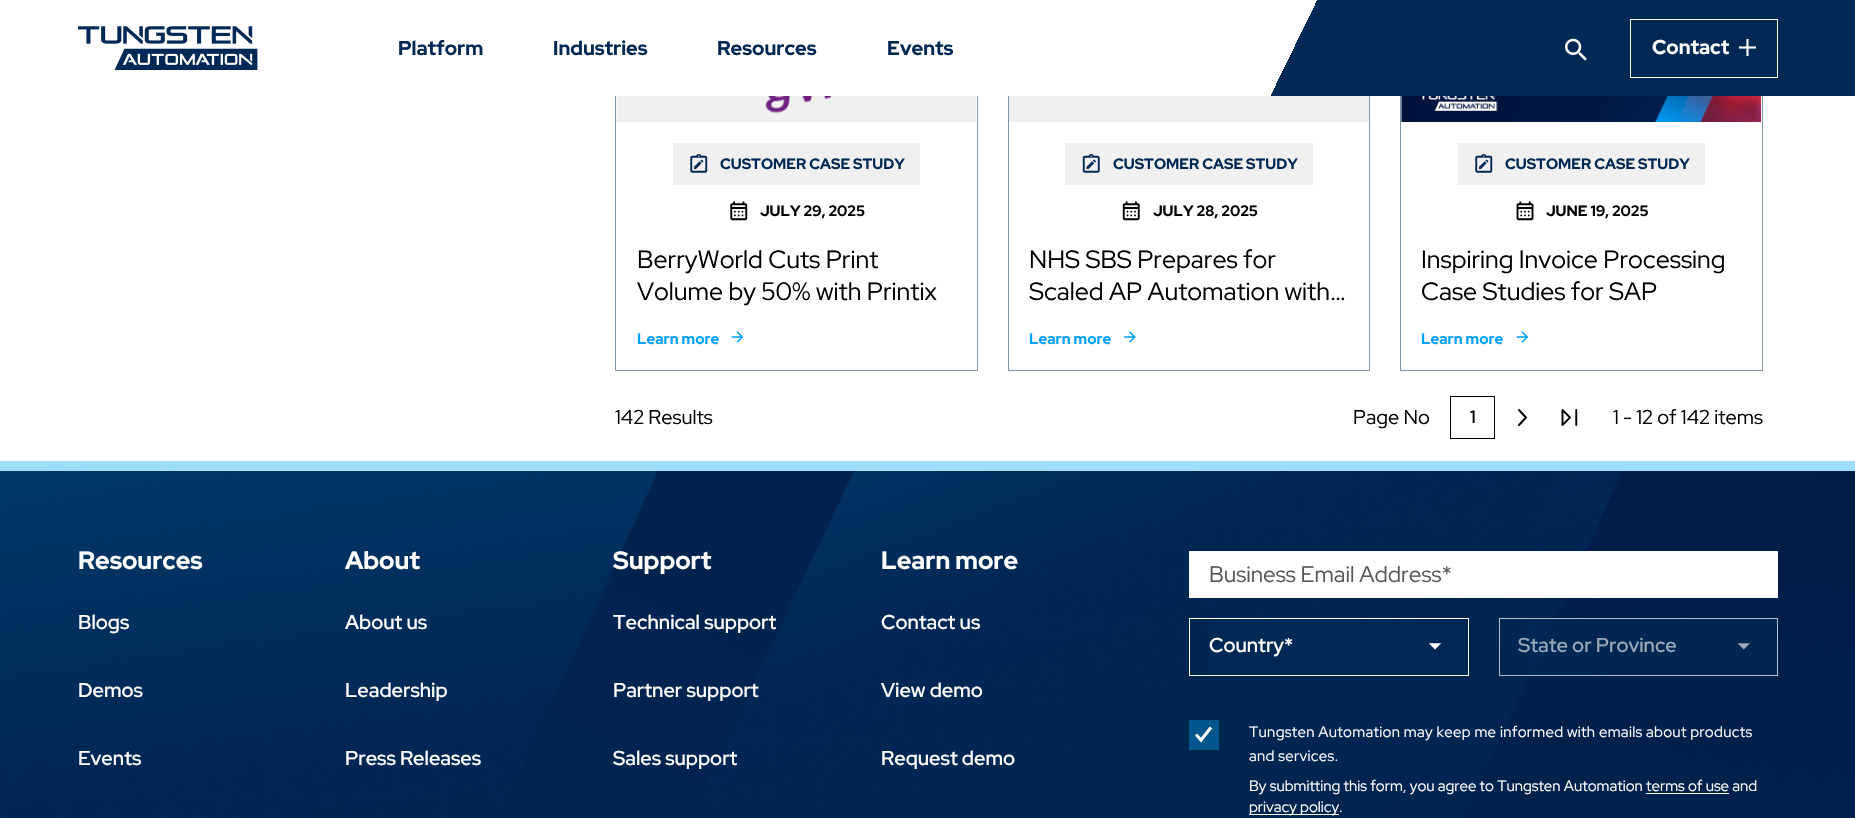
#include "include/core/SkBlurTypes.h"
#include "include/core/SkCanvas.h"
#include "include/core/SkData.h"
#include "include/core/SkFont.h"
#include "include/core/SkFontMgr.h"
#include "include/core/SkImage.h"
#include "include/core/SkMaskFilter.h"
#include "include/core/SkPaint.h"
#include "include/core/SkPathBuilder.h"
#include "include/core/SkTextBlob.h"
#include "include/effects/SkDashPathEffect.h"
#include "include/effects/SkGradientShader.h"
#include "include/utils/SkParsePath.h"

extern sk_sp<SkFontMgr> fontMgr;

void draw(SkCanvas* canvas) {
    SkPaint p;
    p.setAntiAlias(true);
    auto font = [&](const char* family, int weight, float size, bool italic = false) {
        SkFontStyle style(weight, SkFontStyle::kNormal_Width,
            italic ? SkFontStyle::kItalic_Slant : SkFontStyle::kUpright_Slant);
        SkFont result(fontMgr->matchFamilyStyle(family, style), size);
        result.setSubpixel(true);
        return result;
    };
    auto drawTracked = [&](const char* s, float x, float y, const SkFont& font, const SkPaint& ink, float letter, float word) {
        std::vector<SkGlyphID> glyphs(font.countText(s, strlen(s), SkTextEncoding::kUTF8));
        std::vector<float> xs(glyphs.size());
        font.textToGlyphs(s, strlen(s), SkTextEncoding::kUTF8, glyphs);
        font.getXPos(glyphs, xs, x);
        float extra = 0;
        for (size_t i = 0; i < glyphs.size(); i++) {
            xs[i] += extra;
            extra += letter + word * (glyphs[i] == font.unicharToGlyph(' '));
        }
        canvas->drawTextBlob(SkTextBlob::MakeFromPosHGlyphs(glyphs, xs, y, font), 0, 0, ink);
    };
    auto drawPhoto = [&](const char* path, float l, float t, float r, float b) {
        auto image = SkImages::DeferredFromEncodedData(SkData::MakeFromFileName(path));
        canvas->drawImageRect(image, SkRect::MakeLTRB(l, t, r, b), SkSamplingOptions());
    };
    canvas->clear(0xFFFFFFFF);
    p.setStyle(SkPaint::kStroke_Style);
    p.setStrokeWidth(1);
    p.setColor(0xFF8094AA);
    canvas->drawRect(SkRect::MakeLTRB(615.5f, -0.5f, 977.5f, 370.5f), p);
    canvas->drawRect(SkRect::MakeLTRB(1008.5f, -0.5f, 1369.5f, 370.5f), p);
    canvas->drawRect(SkRect::MakeLTRB(1400.5f, -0.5f, 1762.5f, 370.5f), p);
    p.setStyle(SkPaint::kFill_Style);
    {
        const SkColor colors[] = {0xFFFFFFFF, 0xFF002854, 0xFF002854};
        const float stops[] = {0.7f, 0.7f, 1};
        const SkPoint ends[] = {{440, -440}, {1415, 536}};
        p.setShader(SkGradientShader::MakeLinear(ends, colors, stops, 3, SkTileMode::kClamp));
        p.setAlpha(255);
    }
    canvas->drawRect(SkRect::MakeLTRB(615, 0, 1855, 96), p);
    {
        const SkColor colors[] = {0xFFFFFFFF, 0xFF002854, 0xFF002854};
        const float stops[] = {0.7f, 0.7f, 1};
        const SkPoint ends[] = {{224, -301}, {1655, 397}};
        p.setShader(SkGradientShader::MakeLinear(ends, colors, stops, 3, SkTileMode::kClamp));
        p.setAlpha(255);
    }
    canvas->drawRect(SkRect::MakeLTRB(1270, 0, 1365, 96), p);
    drawPhoto("media/1.png", 78, 26, 258, 70);
    auto font1 = font("Red Hat Display", 700, 20);
    p.setShader(nullptr);
    p.setColor(0xFF002854);
    {
        const struct { const char* s; float x, y; } items[] = {
            {"Platform", 398, 55},
            {"Industries", 553, 55},
            {"Resources", 717, 55},
            {"Events", 887, 55},
        };
        for (auto [s, x, y] : items) {
            canvas->drawString(s, x, y, font1, p);
        }
    }
    drawPhoto("media/2.png", 1565, 38, 1587, 61);
    p.setStyle(SkPaint::kStroke_Style);
    p.setColor(0xFFFFFFFF);
    canvas->drawRect(SkRect::MakeLTRB(1630.5f, 19.5f, 1777.5f, 77.5f), p);
    p.setStyle(SkPaint::kFill_Style);
    canvas->drawString("Contact", 1652, 54, font1, p);
    drawPhoto("media/3.png", 1739, 39, 1756, 56);
    drawPhoto("media/4.png", 616, 96, 976, 122);
    p.setColor(0xFFF0F0F0);
    canvas->drawRect(SkRect::MakeLTRB(673, 143, 920, 185), p);
    drawPhoto("media/5.png", 690, 154, 708, 173);
    auto font2 = font("Red Hat Display", 700, 15);
    p.setColor(0xFF002854);
    canvas->drawString("CUSTOMER CASE STUDY", 720, 169, font2, p);
    drawPhoto("media/6.png", 730, 201, 748, 221);
    p.setColor(0xFF000000);
    canvas->drawString("JULY 29, 2025", 760, 216, font2, p);
    auto font3 = font("Red Hat Display", 400, 25);
    canvas->drawString("BerryWorld Cuts Print", 637, 268, font3, p);
    canvas->drawString("Volume by 50% with Printix", 637, 300, font3, p);
    p.setColor(0xFF00A0FB);
    canvas->drawString("Learn more", 637, 344, font2, p);
    drawPhoto("media/7.png", 731, 331, 744, 343);
    drawPhoto("media/8.png", 1009, 96, 1369, 122);
    p.setColor(0xFFF0F0F0);
    canvas->drawRect(SkRect::MakeLTRB(1065, 143, 1313, 185), p);
    drawPhoto("media/9.png", 1082, 154, 1100, 173);
    p.setColor(0xFF002854);
    canvas->drawString("CUSTOMER CASE STUDY", 1113, 169, font2, p);
    drawPhoto("media/10.png", 1122, 201, 1140, 221);
    p.setColor(0xFF000000);
    canvas->drawString("JULY 28, 2025", 1153, 216, font2, p);
    canvas->drawString("NHS SBS Prepares for", 1029, 268, font3, p);
    canvas->drawString("Scaled AP Automation with…", 1029, 300, font3, p);
    p.setColor(0xFF00A0FB);
    canvas->drawString("Learn more", 1029, 344, font2, p);
    drawPhoto("media/11.png", 1124, 331, 1136, 343);
    drawPhoto("media/12.png", 1401, 96, 1762, 122);
    p.setColor(0xFFF0F0F0);
    canvas->drawRect(SkRect::MakeLTRB(1458, 143, 1705, 185), p);
    drawPhoto("media/5.png", 1475, 154, 1493, 173);
    p.setColor(0xFF002854);
    canvas->drawString("CUSTOMER CASE STUDY", 1505, 169, font2, p);
    drawPhoto("media/13.png", 1516, 201, 1534, 221);
    p.setColor(0xFF000000);
    canvas->drawString("JUNE 19, 2025", 1546, 216, font2, p);
    canvas->drawString("Inspiring Invoice Processing", 1421, 268, font3, p);
    canvas->drawString("Case Studies for SAP", 1421, 300, font3, p);
    p.setColor(0xFF00A0FB);
    canvas->drawString("Learn more", 1421, 344, font2, p);
    drawPhoto("media/14.png", 1516, 331, 1529, 343);
    auto font4 = font("Red Hat Display", 400, 20);
    p.setColor(0xFF000000);
    canvas->drawString("142 Results", 615, 424, font4, p);
    canvas->drawString("Page No", 1353, 424, font4, p);
    p.setStyle(SkPaint::kStroke_Style);
    canvas->drawRect(SkRect::MakeLTRB(1450.5f, 396.5f, 1494.5f, 438.5f), p);
    auto font5 = font("Red Hat Display", 500, 18);
    p.setStyle(SkPaint::kFill_Style);
    canvas->drawString("1", 1470, 423, font5, p);
    p.setStyle(SkPaint::kStroke_Style);
    p.setStrokeWidth(1.9f);
    p.setStrokeCap(SkPaint::kRound_Cap);
    p.setStrokeJoin(SkPaint::kRound_Join);
    canvas->drawPath(SkPathBuilder().moveTo(1519, 425).lineTo(1526, 417.5f).lineTo(1519, 410).detach(), p);
    drawPhoto("media/15.png", 1561, 409, 1578, 426);
    p.setStyle(SkPaint::kFill_Style);
    canvas->drawString("1 - 12 of 142 items", 1613, 424, font4, p);
    drawPhoto("media/16.png", 0, 471, 1855, 818);
    p.setColor(0xFF9DDDF9);
    canvas->drawRect(SkRect::MakeLTRB(0, 461, 1855, 471), p);
    auto font6 = font("Red Hat Display", 700, 25);
    p.setColor(0xFFFFFFFF);
    canvas->drawString("Resources", 78, 569, font6, p);
    auto font7 = font("Red Hat Display", 500, 20);
    {
        const struct { const char* s; float x, y; } items[] = {
            {"Blogs", 78, 629},
            {"Demos", 78, 697},
            {"Events", 78, 765},
        };
        for (auto [s, x, y] : items) {
            canvas->drawString(s, x, y, font7, p);
        }
    }
    canvas->drawString("About", 345, 569, font6, p);
    {
        const struct { const char* s; float x, y; } items[] = {
            {"About us", 345, 629},
            {"Leadership", 345, 697},
            {"Press Releases", 345, 765},
        };
        for (auto [s, x, y] : items) {
            canvas->drawString(s, x, y, font7, p);
        }
    }
    canvas->drawString("Support", 613, 569, font6, p);
    {
        const struct { const char* s; float x, y; } items[] = {
            {"Technical support", 613, 629},
            {"Partner support", 613, 697},
            {"Sales support", 613, 765},
        };
        for (auto [s, x, y] : items) {
            canvas->drawString(s, x, y, font7, p);
        }
    }
    canvas->drawString("Learn more", 881, 569, font6, p);
    {
        const struct { const char* s; float x, y; } items[] = {
            {"Contact us", 881, 629},
            {"View demo", 881, 697},
            {"Request demo", 881, 765},
        };
        for (auto [s, x, y] : items) {
            canvas->drawString(s, x, y, font7, p);
        }
    }
    canvas->drawRect(SkRect::MakeLTRB(1189, 551, 1778, 598), p);
    auto font8 = font("Red Hat Display", 400, 22.5f);
    p.setColor(0xFF53565A);
    canvas->drawString("Business Email Address*", 1209, 582, font8, p);
    p.setColor(0xFF002854);
    canvas->drawRect(SkRect::MakeLTRB(1209, 619, 1468, 675), p);
    p.setStyle(SkPaint::kStroke_Style);
    p.setStrokeWidth(1);
    p.setStrokeCap(SkPaint::kButt_Cap);
    p.setStrokeJoin(SkPaint::kMiter_Join);
    p.setColor(0xFFFFFFFF);
    canvas->drawRect(SkRect::MakeLTRB(1189.5f, 618.5f, 1468.5f, 675.5f), p);
    drawPhoto("media/17.png", 1429, 643, 1441, 650);
    p.setStyle(SkPaint::kFill_Style);
    canvas->drawString("Country*", 1209, 652, font7, p);
    p.setColor(0xB3002854);
    canvas->drawRect(SkRect::MakeLTRB(1527, 619, 1777, 675), p);
    p.setStyle(SkPaint::kStroke_Style);
    p.setColor(0xFFB3BECB);
    canvas->drawRect(SkRect::MakeLTRB(1499.5f, 618.5f, 1777.5f, 675.5f), p);
    drawPhoto("media/18.png", 1737, 643, 1750, 650);
    p.setStyle(SkPaint::kFill_Style);
    p.setColor(0xFF99A8BA);
    canvas->drawString("State or Province", 1518, 652, font7, p);
    p.setColor(0xFF00558C);
    canvas->drawRect(SkRect::MakeLTRB(1189, 720, 1219, 750), p);
    auto font9 = font("Red Hat Display", 400, 15);
    p.setColor(0xFFFFFFFF);
    drawTracked("Tungsten Automation may keep me informed with emails about products", 1249, 737, font9, p, 0.3f, 0);
    p.setStyle(SkPaint::kStroke_Style);
    p.setStrokeWidth(3.1f);
    canvas->drawPath(SkPathBuilder().moveTo(1196, 734.5f).lineTo(1201, 740).lineTo(1211, 727.5f).detach(), p);
    p.setStyle(SkPaint::kFill_Style);
    drawTracked("and services.", 1249, 761, font9, p, 0.3f, 0);
    canvas->drawString("By submitting this form, you agree to Tungsten Automation terms of use and", 1249, 791, font9, p);
    canvas->drawRect(SkRect::MakeLTRB(1646, 793, 1729, 794), p);
    canvas->drawRect(SkRect::MakeLTRB(1249, 814, 1339, 815), p);
    canvas->drawString("privacy policy.", 1249, 812, font9, p);
}
